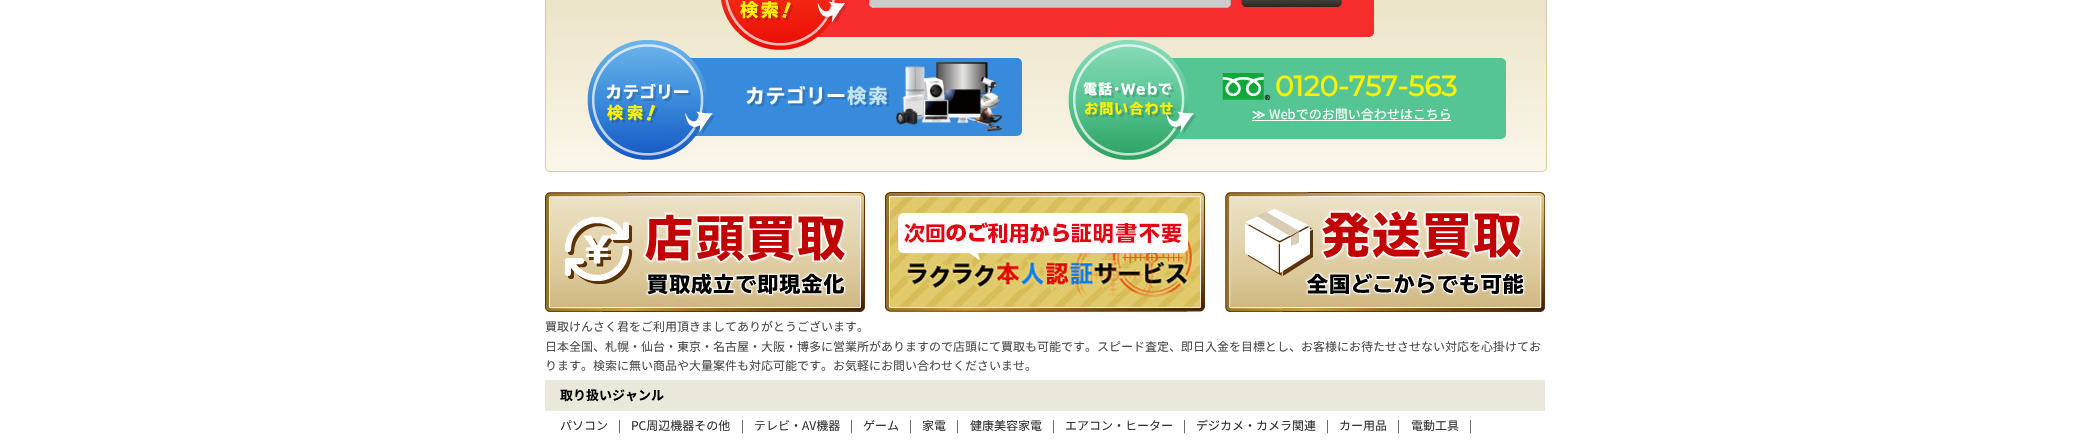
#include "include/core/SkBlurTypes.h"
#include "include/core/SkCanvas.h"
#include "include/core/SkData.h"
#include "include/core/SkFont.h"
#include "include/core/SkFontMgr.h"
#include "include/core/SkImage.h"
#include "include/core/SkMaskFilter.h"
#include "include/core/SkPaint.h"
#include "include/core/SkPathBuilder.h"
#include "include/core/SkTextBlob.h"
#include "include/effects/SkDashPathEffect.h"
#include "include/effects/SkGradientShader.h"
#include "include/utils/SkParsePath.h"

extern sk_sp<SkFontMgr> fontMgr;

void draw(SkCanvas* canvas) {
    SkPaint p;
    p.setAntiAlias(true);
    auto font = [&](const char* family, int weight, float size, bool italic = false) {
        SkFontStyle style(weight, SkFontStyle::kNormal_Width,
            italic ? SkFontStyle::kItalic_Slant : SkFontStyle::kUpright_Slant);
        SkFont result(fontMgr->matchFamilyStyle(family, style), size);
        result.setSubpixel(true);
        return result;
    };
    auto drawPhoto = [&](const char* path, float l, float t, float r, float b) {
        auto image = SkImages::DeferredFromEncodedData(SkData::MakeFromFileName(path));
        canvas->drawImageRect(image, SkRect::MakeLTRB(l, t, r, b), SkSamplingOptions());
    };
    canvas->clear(0xFFFFFFFF);
    canvas->save();
    canvas->clipPath(SkPathBuilder().moveTo(550, -127).lineTo(1542, -127).cubicTo(1545, -127, 1547, -125, 1547, -122).lineTo(1547, 167).cubicTo(1547, 170, 1545, 172, 1542, 172).lineTo(550, 172).cubicTo(547, 172, 545, 170, 545, 167).lineTo(545, -122).cubicTo(545, -125, 547, -127, 550, -127).close().detach(), true);
    {
        const SkColor colors[] = {0xFFE3D7B0, 0xFFFAF6EA};
        const float stops[] = {0, 1};
        const SkPoint ends[] = {{1046, -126}, {1046, 171}};
        p.setShader(SkGradientShader::MakeLinear(ends, colors, stops, 2, SkTileMode::kClamp));
        p.setAlpha(255);
    }
    canvas->drawRect(SkRect::MakeLTRB(545, 0, 1547, 171), p);
    canvas->restore();
    p.setStyle(SkPaint::kStroke_Style);
    p.setStrokeWidth(1);
    p.setShader(nullptr);
    p.setColor(0xFFDBCD9E);
    canvas->drawRoundRect(SkRect::MakeLTRB(545.5f, -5.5f, 1546.5f, 171.5f), 4.5f, 4.5f, p);
    p.setStyle(SkPaint::kFill_Style);
    p.setColor(0xFFF72D2D);
    canvas->drawRoundRect(SkRect::MakeLTRB(794, -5, 1374, 37), 5, 5, p);
    drawPhoto("media/1.png", 721, 0, 848, 50);
    p.setColor(0xFFFFFFFF);
    canvas->drawRoundRect(SkRect::MakeLTRB(869, -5, 1231, 8), 5, 5, p);
    p.setColor(0xFFCCCCCC);
    canvas->drawPath(SkPathBuilder().moveTo(874, -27).cubicTo(869, -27, 870, -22, 870, -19).lineTo(870, -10).cubicTo(870, -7, 869, 3, 871, 6).lineTo(874, 7).lineTo(1226, 7).cubicTo(1232, 7, 1230, -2, 1230, -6).lineTo(1230, -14).cubicTo(1230, -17, 1231, -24, 1228, -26).lineTo(1226, -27).close().detach(), p);
    p.setStyle(SkPaint::kStroke_Style);
    p.setColor(0xFFB2B2B2);
    canvas->drawRoundRect(SkRect::MakeLTRB(869.5f, -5.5f, 1230.5f, 7.5f), 4.5f, 4.5f, p);
    drawPhoto("media/2.png", 1241, 0, 1342, 7);
    p.setStyle(SkPaint::kFill_Style);
    p.setColor(0xFF378ADC);
    canvas->drawRoundRect(SkRect::MakeLTRB(661, 58, 1022, 136), 5, 5, p);
    drawPhoto("media/3.png", 587, 40, 715, 160);
    drawPhoto("media/4.png", 746, 86, 890, 108);
    drawPhoto("media/5.png", 895, 62, 1002, 132);
    p.setColor(0xFF55C594);
    canvas->drawRoundRect(SkRect::MakeLTRB(1158, 58, 1506, 139), 5, 5, p);
    drawPhoto("media/6.png", 1068, 40, 1196, 160);
    drawPhoto("media/7.png", 1222, 73, 1271, 100);
    auto font1 = font("Montserrat", 700, 28);
    p.setColor(0xFFFFF100);
    canvas->drawString("0120-757-563", 1275, 96, font1, p);
    auto font2 = font("DejaVu Sans", 400, 13);
    p.setColor(0xFFFFFFFF);
    canvas->drawString("≫", 1252, 119, font2, p);
    canvas->drawRect(SkRect::MakeLTRB(1252, 120, 1451, 121), p);
    auto font3 = font("Noto Sans JP", 400, 13);
    canvas->drawString("Webでのお問い合わせはこちら", 1269, 119, font3, p);
    drawPhoto("media/8.png", 545, 192, 865, 312);
    drawPhoto("media/9.png", 885, 192, 1205, 312);
    drawPhoto("media/10.png", 1225, 192, 1545, 312);
    auto font4 = font("Noto Sans JP", 400, 12);
    p.setColor(0xFF4C4C4C);
    {
        const struct { const char* s; float x, y; } items[] = {
            {"買取けんさく君をご利用頂きましてありがとうございます。", 545, 331},
            {"日本全国、札幌・仙台・東京・名古屋・大阪・博多に営業所がありますので店頭にて買取も可能です。スピード査定、即日入金を目標とし、お客様にお待たせさせない対応を心掛けてお", 545, 351},
            {"ります。検索に無い商品や大量案件も対応可能です。お気軽にお問い合わせくださいませ。", 545, 370},
        };
        for (auto [s, x, y] : items) {
            canvas->drawString(s, x, y, font4, p);
        }
    }
    p.setColor(0xFFEAE8DA);
    canvas->drawRect(SkRect::MakeLTRB(545, 380, 1545, 411), p);
    auto font5 = font("Noto Sans JP", 700, 13);
    p.setColor(0xFF000000);
    canvas->drawString("取り扱いジャンル", 560, 400, font5, p);
    p.setColor(0xFF333333);
    canvas->drawString("パソコン", 560, 430, font4, p);
    p.setColor(0xFF4C4C4C);
    canvas->drawString("|", 618, 430, font4, p);
    p.setColor(0xFF333333);
    canvas->drawString("PC周辺機器その他", 631, 430, font4, p);
    p.setColor(0xFF4C4C4C);
    canvas->drawString("|", 741, 430, font4, p);
    p.setColor(0xFF333333);
    canvas->drawString("テレビ・AV機器", 754, 430, font4, p);
    p.setColor(0xFF4C4C4C);
    canvas->drawString("|", 850, 430, font4, p);
    p.setColor(0xFF333333);
    canvas->drawString("ゲーム", 863, 430, font4, p);
    p.setColor(0xFF4C4C4C);
    canvas->drawString("|", 909, 430, font4, p);
    p.setColor(0xFF333333);
    canvas->drawString("家電", 922, 430, font4, p);
    p.setColor(0xFF4C4C4C);
    canvas->drawString("|", 956, 430, font4, p);
    p.setColor(0xFF333333);
    canvas->drawString("健康美容家電", 970, 430, font4, p);
    p.setColor(0xFF4C4C4C);
    canvas->drawString("|", 1052, 430, font4, p);
    p.setColor(0xFF333333);
    canvas->drawString("エアコン・ヒーター", 1065, 430, font4, p);
    p.setColor(0xFF4C4C4C);
    canvas->drawString("|", 1183, 430, font4, p);
    p.setColor(0xFF333333);
    canvas->drawString("デジカメ・カメラ関連", 1196, 430, font4, p);
    p.setColor(0xFF4C4C4C);
    canvas->drawString("|", 1326, 430, font4, p);
    p.setColor(0xFF333333);
    canvas->drawString("カー用品", 1339, 430, font4, p);
    p.setColor(0xFF4C4C4C);
    canvas->drawString("|", 1397, 430, font4, p);
    p.setColor(0xFF333333);
    canvas->drawString("電動工具", 1411, 430, font4, p);
    p.setColor(0xFF4C4C4C);
    canvas->drawString("|", 1469, 430, font4, p);
}
